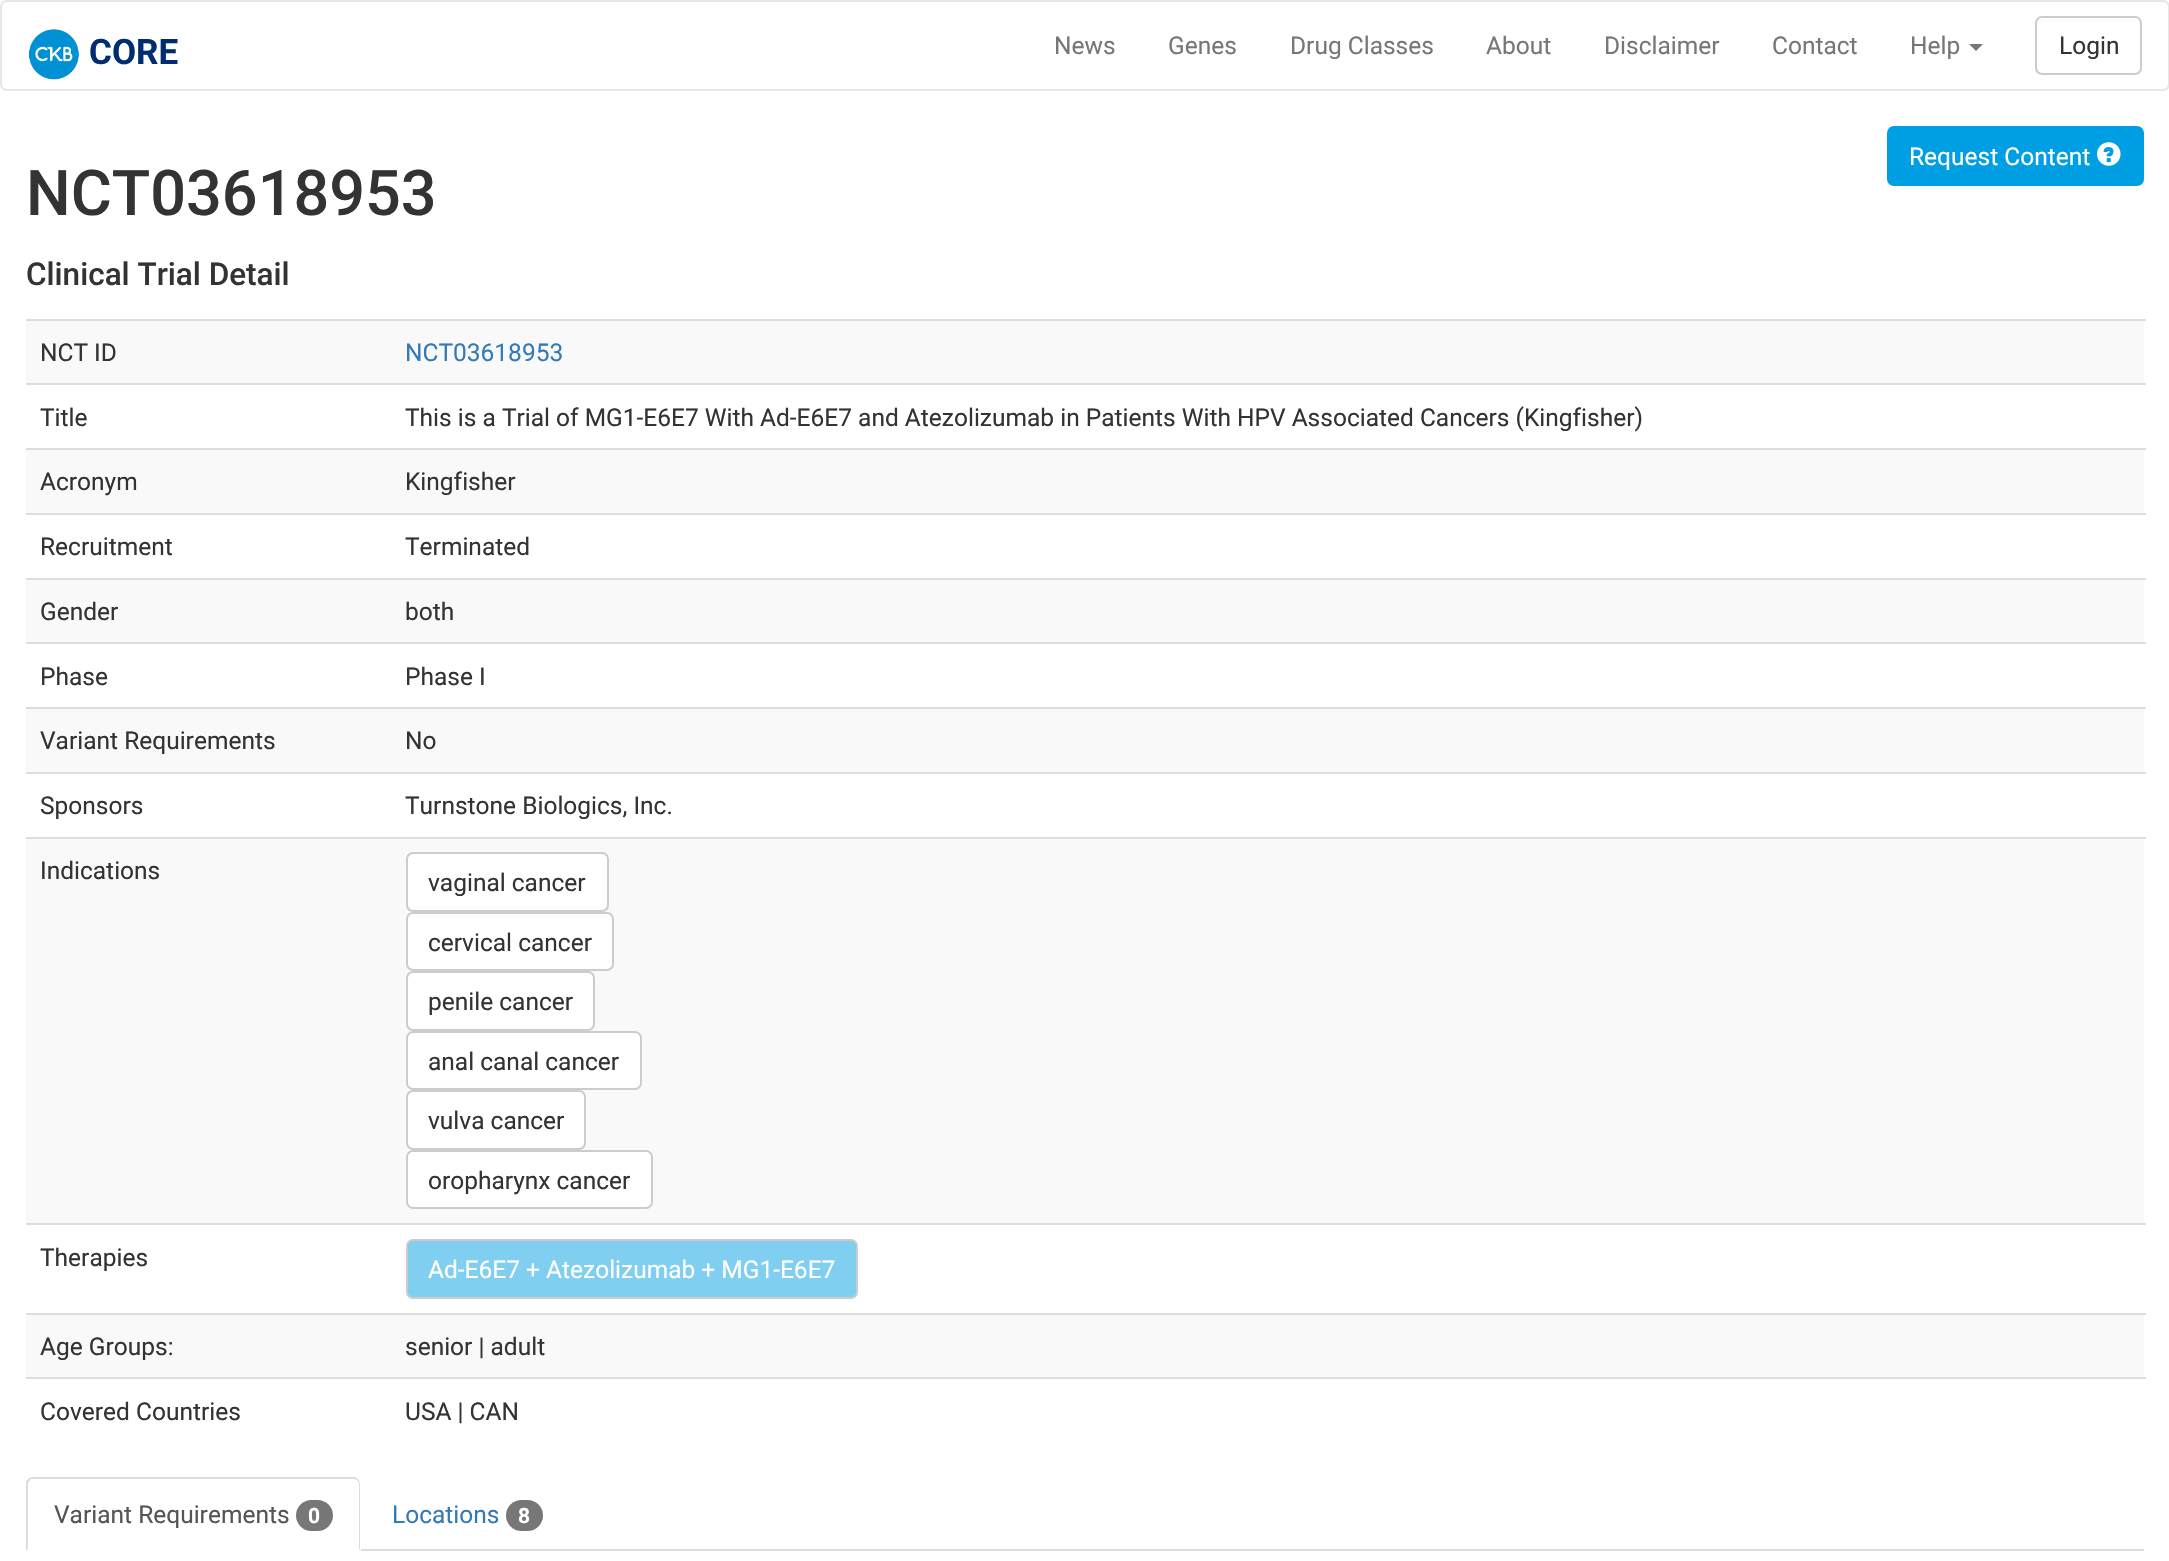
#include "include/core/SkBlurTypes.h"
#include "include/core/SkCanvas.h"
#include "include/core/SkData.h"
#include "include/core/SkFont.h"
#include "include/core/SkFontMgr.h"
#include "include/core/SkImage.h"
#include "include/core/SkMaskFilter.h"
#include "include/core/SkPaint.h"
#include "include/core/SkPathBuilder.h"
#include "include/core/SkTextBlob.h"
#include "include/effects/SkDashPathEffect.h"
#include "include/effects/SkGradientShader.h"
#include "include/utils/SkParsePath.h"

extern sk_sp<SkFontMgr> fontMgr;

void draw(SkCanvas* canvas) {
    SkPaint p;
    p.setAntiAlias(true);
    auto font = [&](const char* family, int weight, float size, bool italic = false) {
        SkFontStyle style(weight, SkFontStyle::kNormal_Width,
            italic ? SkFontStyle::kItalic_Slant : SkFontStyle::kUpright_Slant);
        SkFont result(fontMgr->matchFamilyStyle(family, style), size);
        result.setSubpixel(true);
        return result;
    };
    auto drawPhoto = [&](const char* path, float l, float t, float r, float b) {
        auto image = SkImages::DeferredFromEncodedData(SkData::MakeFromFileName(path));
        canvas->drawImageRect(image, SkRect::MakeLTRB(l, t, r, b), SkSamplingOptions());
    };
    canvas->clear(0xFFFFFFFF);
    p.setStyle(SkPaint::kStroke_Style);
    p.setStrokeWidth(2);
    p.setColor(0xFFE7E7E7);
    canvas->drawRoundRect(SkRect::MakeLTRB(1, 1, 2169, 90), 6, 6, p);
    drawPhoto("media/1.png", 28, 29, 79, 80);
    auto font1 = font("Roboto", 700, 35);
    p.setStyle(SkPaint::kFill_Style);
    p.setColor(0xFF002D72);
    canvas->drawString("CORE", 89, 64, font1, p);
    auto font2 = font("Roboto", 400, 24.5f);
    p.setColor(0xFF777777);
    {
        const struct { const char* s; float x, y; } items[] = {
            {"News", 1054, 54},
            {"Genes", 1168, 54},
            {"Drug Classes", 1290, 54},
            {"About", 1486, 54},
            {"Disclaimer", 1604, 54},
            {"Contact", 1772, 54},
            {"Help", 1910, 54},
        };
        for (auto [s, x, y] : items) {
            canvas->drawString(s, x, y, font2, p);
        }
    }
    canvas->drawPath(SkPathBuilder().moveTo(1969, 44).lineTo(1983, 44).lineTo(1976, 51).close().detach(), p);
    p.setStyle(SkPaint::kStroke_Style);
    p.setColor(0xFFCCCCCC);
    canvas->drawRoundRect(SkRect::MakeLTRB(2036, 17, 2141, 74), 6, 6, p);
    p.setStyle(SkPaint::kFill_Style);
    p.setColor(0xFF333333);
    canvas->drawString("Login", 2059, 54, font2, p);
    p.setColor(0xFF009FE3);
    canvas->drawRoundRect(SkRect::MakeLTRB(1888, 127, 2143, 185), 6, 6, p);
    p.setStyle(SkPaint::kStroke_Style);
    canvas->drawRoundRect(SkRect::MakeLTRB(1888, 127, 2143, 185), 6, 6, p);
    p.setStyle(SkPaint::kFill_Style);
    p.setColor(0xFFFFFFFF);
    canvas->drawString("Request Content", 1909, 165, font2, p);
    drawPhoto("media/2.png", 2097, 142, 2121, 166);
    auto font3 = font("Roboto", 500, 63);
    p.setColor(0xFF333333);
    canvas->drawString("NCT03618953", 26, 215, font3, p);
    auto font4 = font("Roboto", 500, 31.5f);
    canvas->drawString("Clinical Trial Detail", 26, 285, font4, p);
    p.setColor(0xFFF9F9F9);
    canvas->drawRect(SkRect::MakeLTRB(26, 321, 2144, 383), p);
    p.setColor(0xFF333333);
    canvas->drawString("NCT ID", 40, 361, font2, p);
    p.setColor(0xFFDDDDDD);
    canvas->drawRect(SkRect::MakeLTRB(26, 319, 2146, 321), p);
    p.setColor(0xFF337AB7);
    canvas->drawString("NCT03618953", 405, 361, font2, p);
    p.setColor(0xFF333333);
    canvas->drawString("Title", 40, 426, font2, p);
    p.setColor(0xFFDDDDDD);
    canvas->drawRect(SkRect::MakeLTRB(26, 383, 2146, 385), p);
    p.setColor(0xFF333333);
    canvas->drawString("This is a Trial of MG1-E6E7 With Ad-E6E7 and Atezolizumab in Patients With HPV Associated Cancers (Kingfisher)", 405, 426, font2, p);
    p.setColor(0xFFF9F9F9);
    canvas->drawRect(SkRect::MakeLTRB(26, 450, 2144, 513), p);
    p.setColor(0xFF333333);
    canvas->drawString("Acronym", 40, 490, font2, p);
    p.setColor(0xFFDDDDDD);
    canvas->drawRect(SkRect::MakeLTRB(26, 448, 2146, 450), p);
    p.setColor(0xFF333333);
    canvas->drawString("Kingfisher", 405, 490, font2, p);
    canvas->drawString("Recruitment", 40, 555, font2, p);
    p.setColor(0xFFDDDDDD);
    canvas->drawRect(SkRect::MakeLTRB(26, 513, 2146, 515), p);
    p.setColor(0xFF333333);
    canvas->drawString("Terminated", 405, 555, font2, p);
    p.setColor(0xFFF9F9F9);
    canvas->drawRect(SkRect::MakeLTRB(26, 580, 2144, 642), p);
    p.setColor(0xFF333333);
    canvas->drawString("Gender", 40, 620, font2, p);
    p.setColor(0xFFDDDDDD);
    canvas->drawRect(SkRect::MakeLTRB(26, 578, 2146, 580), p);
    p.setColor(0xFF333333);
    canvas->drawString("both", 405, 620, font2, p);
    canvas->drawString("Phase", 40, 685, font2, p);
    p.setColor(0xFFDDDDDD);
    canvas->drawRect(SkRect::MakeLTRB(26, 642, 2146, 644), p);
    p.setColor(0xFF333333);
    canvas->drawString("Phase I", 405, 685, font2, p);
    p.setColor(0xFFF9F9F9);
    canvas->drawRect(SkRect::MakeLTRB(26, 709, 2144, 772), p);
    p.setColor(0xFF333333);
    canvas->drawString("Variant Requirements", 40, 749, font2, p);
    p.setColor(0xFFDDDDDD);
    canvas->drawRect(SkRect::MakeLTRB(26, 707, 2146, 709), p);
    p.setColor(0xFF333333);
    canvas->drawString("No", 405, 749, font2, p);
    canvas->drawString("Sponsors", 40, 814, font2, p);
    p.setColor(0xFFDDDDDD);
    canvas->drawRect(SkRect::MakeLTRB(26, 772, 2146, 774), p);
    p.setColor(0xFF333333);
    canvas->drawString("Turnstone Biologics, Inc.", 405, 814, font2, p);
    p.setColor(0xFFF9F9F9);
    canvas->drawRect(SkRect::MakeLTRB(26, 839, 2144, 1223), p);
    p.setColor(0xFF333333);
    canvas->drawString("Indications", 40, 879, font2, p);
    p.setColor(0xFFDDDDDD);
    canvas->drawRect(SkRect::MakeLTRB(26, 837, 2146, 839), p);
    p.setColor(0xFFFFFFFF);
    canvas->drawRoundRect(SkRect::MakeLTRB(407, 853, 608, 911), 6, 6, p);
    p.setStyle(SkPaint::kStroke_Style);
    p.setColor(0xFFCCCCCC);
    canvas->drawRoundRect(SkRect::MakeLTRB(407, 853, 608, 911), 6, 6, p);
    p.setStyle(SkPaint::kFill_Style);
    p.setColor(0xFF333333);
    canvas->drawString("vaginal cancer", 428, 891, font2, p);
    p.setColor(0xFFFFFFFF);
    canvas->drawRoundRect(SkRect::MakeLTRB(407, 913, 613, 970), 6, 6, p);
    p.setStyle(SkPaint::kStroke_Style);
    p.setColor(0xFFCCCCCC);
    canvas->drawRoundRect(SkRect::MakeLTRB(407, 913, 613, 970), 6, 6, p);
    p.setStyle(SkPaint::kFill_Style);
    p.setColor(0xFF333333);
    canvas->drawString("cervical cancer", 428, 951, font2, p);
    p.setColor(0xFFFFFFFF);
    canvas->drawRoundRect(SkRect::MakeLTRB(407, 972, 594, 1030), 6, 6, p);
    p.setStyle(SkPaint::kStroke_Style);
    p.setColor(0xFFCCCCCC);
    canvas->drawRoundRect(SkRect::MakeLTRB(407, 972, 594, 1030), 6, 6, p);
    p.setStyle(SkPaint::kFill_Style);
    p.setColor(0xFF333333);
    canvas->drawString("penile cancer", 428, 1010, font2, p);
    p.setColor(0xFFFFFFFF);
    canvas->drawRoundRect(SkRect::MakeLTRB(407, 1032, 641, 1089), 6, 6, p);
    p.setStyle(SkPaint::kStroke_Style);
    p.setColor(0xFFCCCCCC);
    canvas->drawRoundRect(SkRect::MakeLTRB(407, 1032, 641, 1089), 6, 6, p);
    p.setStyle(SkPaint::kFill_Style);
    p.setColor(0xFF333333);
    canvas->drawString("anal canal cancer", 428, 1070, font2, p);
    p.setColor(0xFFFFFFFF);
    canvas->drawRoundRect(SkRect::MakeLTRB(407, 1091, 585, 1149), 6, 6, p);
    p.setStyle(SkPaint::kStroke_Style);
    p.setColor(0xFFCCCCCC);
    canvas->drawRoundRect(SkRect::MakeLTRB(407, 1091, 585, 1149), 6, 6, p);
    p.setStyle(SkPaint::kFill_Style);
    p.setColor(0xFF333333);
    canvas->drawString("vulva cancer", 428, 1129, font2, p);
    p.setColor(0xFFFFFFFF);
    canvas->drawRoundRect(SkRect::MakeLTRB(407, 1151, 652, 1208), 6, 6, p);
    p.setStyle(SkPaint::kStroke_Style);
    p.setColor(0xFFCCCCCC);
    canvas->drawRoundRect(SkRect::MakeLTRB(407, 1151, 652, 1208), 6, 6, p);
    p.setStyle(SkPaint::kFill_Style);
    p.setColor(0xFF333333);
    canvas->drawString("oropharynx cancer", 428, 1189, font2, p);
    canvas->drawString("Therapies", 40, 1266, font2, p);
    p.setColor(0xFFDDDDDD);
    canvas->drawRect(SkRect::MakeLTRB(26, 1223, 2146, 1225), p);
    p.setColor(0xFF80CFF1);
    canvas->drawRoundRect(SkRect::MakeLTRB(407, 1240, 857, 1298), 6, 6, p);
    p.setStyle(SkPaint::kStroke_Style);
    p.setColor(0xFFCCCCCC);
    canvas->drawRoundRect(SkRect::MakeLTRB(407, 1240, 857, 1298), 6, 6, p);
    p.setStyle(SkPaint::kFill_Style);
    p.setColor(0xFFFFFFFF);
    canvas->drawString("Ad-E6E7 + Atezolizumab + MG1-E6E7", 428, 1278, font2, p);
    p.setColor(0xFFF9F9F9);
    canvas->drawRect(SkRect::MakeLTRB(26, 1315, 2144, 1377), p);
    p.setColor(0xFF333333);
    canvas->drawString("Age Groups:", 40, 1355, font2, p);
    p.setColor(0xFFDDDDDD);
    canvas->drawRect(SkRect::MakeLTRB(26, 1313, 2146, 1315), p);
    p.setColor(0xFF333333);
    canvas->drawString("senior | adult", 405, 1355, font2, p);
    canvas->drawString("Covered Countries", 40, 1420, font2, p);
    p.setColor(0xFFDDDDDD);
    canvas->drawRect(SkRect::MakeLTRB(26, 1377, 2146, 1379), p);
    p.setColor(0xFF333333);
    canvas->drawString("USA | CAN", 405, 1420, font2, p);
    p.setColor(0xFFDDDDDD);
    canvas->drawRect(SkRect::MakeLTRB(361, 1549, 2144, 1551), p);
    canvas->drawPath(SkPathBuilder().moveTo(33, 1477).cubicTo(31, 1477, 29, 1478, 28, 1479).lineTo(30, 1480).cubicTo(30, 1479, 32, 1479, 33, 1479).lineTo(354, 1479).lineTo(357, 1480).lineTo(358, 1479).cubicTo(357, 1478, 356, 1477, 354, 1477).close().detach(), p);
    canvas->drawPath(SkPathBuilder().moveTo(358, 1479).cubicTo(359, 1480, 360, 1482, 360, 1484).lineTo(360, 1550).lineTo(359, 1549).lineTo(359, 1483).lineTo(357, 1480).close().detach(), p);
    canvas->drawPath(SkPathBuilder().moveTo(26, 1482).lineTo(28, 1479).lineTo(30, 1480).lineTo(28, 1483).lineTo(28, 1549).lineTo(27, 1550).lineTo(26, 1550).close().detach(), p);
    p.setColor(0xFF555555);
    canvas->drawString("Variant Requirements", 54, 1523, font2, p);
    p.setColor(0xFF777777);
    canvas->drawRoundRect(SkRect::MakeLTRB(296, 1500, 333, 1531), 15.5f, 15.5f, p);
    auto font5 = font("Roboto", 700, 21);
    p.setColor(0xFFFFFFFF);
    canvas->drawString("0", 308, 1523, font5, p);
    p.setColor(0xFF337AB7);
    canvas->drawString("Locations", 392, 1523, font2, p);
    p.setColor(0xFF777777);
    canvas->drawRoundRect(SkRect::MakeLTRB(506, 1500, 543, 1531), 15.5f, 15.5f, p);
    p.setColor(0xFFFFFFFF);
    canvas->drawString("8", 518, 1523, font5, p);
}
